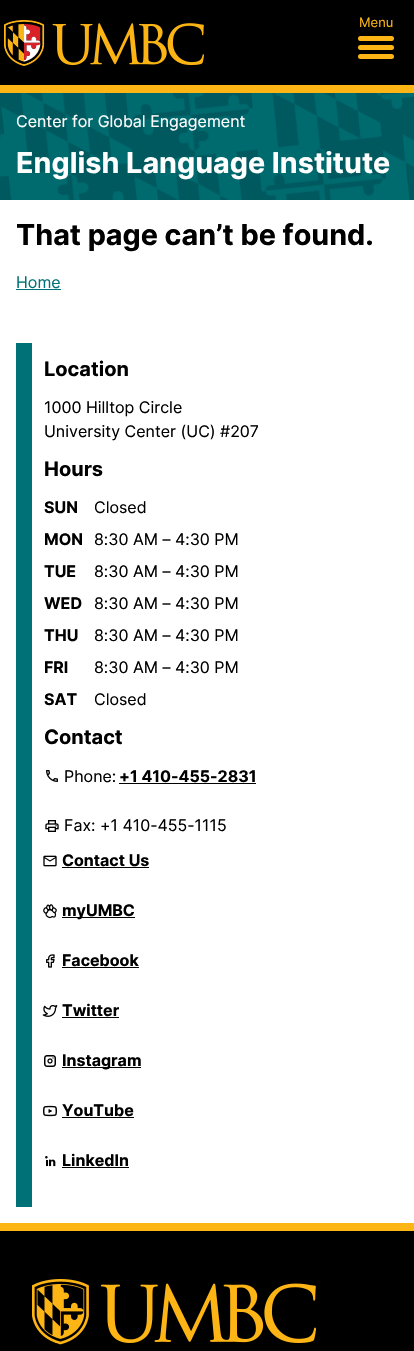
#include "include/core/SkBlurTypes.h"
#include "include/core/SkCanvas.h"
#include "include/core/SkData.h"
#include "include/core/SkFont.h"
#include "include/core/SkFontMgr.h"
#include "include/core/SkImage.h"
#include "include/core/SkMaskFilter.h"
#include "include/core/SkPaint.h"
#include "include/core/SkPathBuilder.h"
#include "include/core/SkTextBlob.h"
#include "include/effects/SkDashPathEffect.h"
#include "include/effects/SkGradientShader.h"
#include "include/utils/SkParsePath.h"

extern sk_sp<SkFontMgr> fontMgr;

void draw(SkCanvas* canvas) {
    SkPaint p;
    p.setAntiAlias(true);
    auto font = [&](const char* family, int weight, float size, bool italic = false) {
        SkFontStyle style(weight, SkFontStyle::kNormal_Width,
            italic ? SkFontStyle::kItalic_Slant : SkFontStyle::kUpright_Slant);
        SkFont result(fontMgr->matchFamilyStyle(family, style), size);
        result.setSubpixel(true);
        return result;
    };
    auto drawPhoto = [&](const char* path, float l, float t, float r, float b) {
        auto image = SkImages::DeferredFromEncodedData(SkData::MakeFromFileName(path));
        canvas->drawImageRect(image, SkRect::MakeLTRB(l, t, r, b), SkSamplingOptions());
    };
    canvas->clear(0xFFFFFFFF);
    p.setColor(0xFFFDB515);
    canvas->drawRect(SkRect::MakeLTRB(0, 85, 414, 93), p);
    p.setColor(0xFF000000);
    canvas->drawRect(SkRect::MakeLTRB(0, 0, 414, 85), p);
    drawPhoto("media/1.png", 4, 20, 204, 66);
    auto font1 = font("Inter", 400, 13);
    p.setColor(0xFFFDB515);
    canvas->drawString("Menu", 359, 27, font1, p);
    canvas->drawRoundRect(SkRect::MakeLTRB(358, 45, 394, 50), 2.5f, 2.5f, p);
    canvas->drawRoundRect(SkRect::MakeLTRB(358, 36, 394, 41), 2.5f, 2.5f, p);
    canvas->drawRoundRect(SkRect::MakeLTRB(358, 54, 394, 59), 2.5f, 2.5f, p);
    p.setColor(0xFF006B6F);
    canvas->drawRect(SkRect::MakeLTRB(0, 93, 414, 200), p);
    drawPhoto("media/2.png", 0, 93, 414, 200);
    auto font2 = font("Inter", 400, 16);
    p.setColor(0xFFFFFFFF);
    canvas->drawString("Center for Global Engagement", 16, 127, font2, p);
    auto font3 = font("Inter", 700, 28.75f);
    canvas->drawString("English Language Institute", 16, 173, font3, p);
    p.setColor(0xFF000000);
    canvas->drawString("That page can’t be found.", 16, 245, font3, p);
    p.setColor(0xFF007176);
    canvas->drawString("Home", 16, 288, font2, p);
    canvas->drawRect(SkRect::MakeLTRB(16, 289, 61, 290), p);
    canvas->drawRect(SkRect::MakeLTRB(16, 343, 32, 1207), p);
    auto font4 = font("Inter", 700, 20);
    p.setColor(0xFF000000);
    canvas->drawString("Location", 44, 376, font4, p);
    canvas->drawString("1000 Hilltop Circle", 44, 413, font2, p);
    canvas->drawString("University Center (UC) #207", 44, 437, font2, p);
    canvas->drawString("Hours", 44, 476, font4, p);
    auto font5 = font("Inter", 700, 16);
    canvas->drawString("SUN", 44, 513, font5, p);
    canvas->drawString("Closed", 94, 513, font2, p);
    canvas->drawString("MON", 44, 545, font5, p);
    canvas->drawString("8:30 AM – 4:30 PM", 94, 545, font2, p);
    canvas->drawString("TUE", 44, 577, font5, p);
    canvas->drawString("8:30 AM – 4:30 PM", 94, 577, font2, p);
    canvas->drawString("WED", 44, 609, font5, p);
    canvas->drawString("8:30 AM – 4:30 PM", 94, 609, font2, p);
    canvas->drawString("THU", 44, 641, font5, p);
    canvas->drawString("8:30 AM – 4:30 PM", 94, 641, font2, p);
    canvas->drawString("FRI", 44, 673, font5, p);
    canvas->drawString("8:30 AM – 4:30 PM", 94, 673, font2, p);
    canvas->drawString("SAT", 44, 705, font5, p);
    canvas->drawString("Closed", 94, 705, font2, p);
    canvas->drawString("Contact", 44, 744, font4, p);
    drawPhoto("media/3.png", 46, 770, 58, 782);
    canvas->drawString("Phone:", 64, 782, font2, p);
    canvas->drawString("+1 410-455-2831", 119, 782, font5, p);
    canvas->drawRect(SkRect::MakeLTRB(119, 783, 256, 784), p);
    drawPhoto("media/4.png", 45, 820, 59, 832);
    canvas->drawString("Fax: +1 410-455-1115", 64, 831, font2, p);
    drawPhoto("media/5.png", 43, 855, 57, 867);
    canvas->drawString("Contact Us", 62, 866, font5, p);
    canvas->drawRect(SkRect::MakeLTRB(62, 867, 149, 868), p);
    drawPhoto("media/6.png", 43, 904, 57, 919);
    canvas->drawRect(SkRect::MakeLTRB(62, 917, 135, 918), p);
    canvas->drawString("myUMBC", 62, 916, font5, p);
    drawPhoto("media/7.png", 46, 954, 55, 968);
    canvas->drawString("Facebook", 62, 966, font5, p);
    canvas->drawRect(SkRect::MakeLTRB(62, 967, 139, 968), p);
    drawPhoto("media/8.png", 42, 1005, 58, 1017);
    canvas->drawString("Twitter", 62, 1016, font5, p);
    canvas->drawRect(SkRect::MakeLTRB(62, 1017, 119, 1018), p);
    drawPhoto("media/9.png", 44, 1055, 56, 1067);
    canvas->drawRect(SkRect::MakeLTRB(62, 1067, 141, 1068), p);
    canvas->drawString("Instagram", 62, 1066, font5, p);
    drawPhoto("media/10.png", 43, 1105, 57, 1117);
    canvas->drawString("YouTube", 62, 1116, font5, p);
    canvas->drawRect(SkRect::MakeLTRB(62, 1117, 134, 1118), p);
    drawPhoto("media/11.png", 45, 1156, 56, 1167);
    canvas->drawString("LinkedIn", 62, 1166, font5, p);
    {
        const struct { float l, t, r, b; SkColor color; } items[] = {
            {62, 1167, 129, 1168, 0xFF000000},
            {0, 1231, 414, 1351, 0xFF000000},
            {0, 1223, 414, 1231, 0xFFFDB515},
        };
        for (auto [l, t, r, b, color] : items) {
            p.setColor(color);
            canvas->drawRect(SkRect::MakeLTRB(l, t, r, b), p);
        }
    }
    drawPhoto("media/12.png", 32, 1279, 316, 1345);
}
